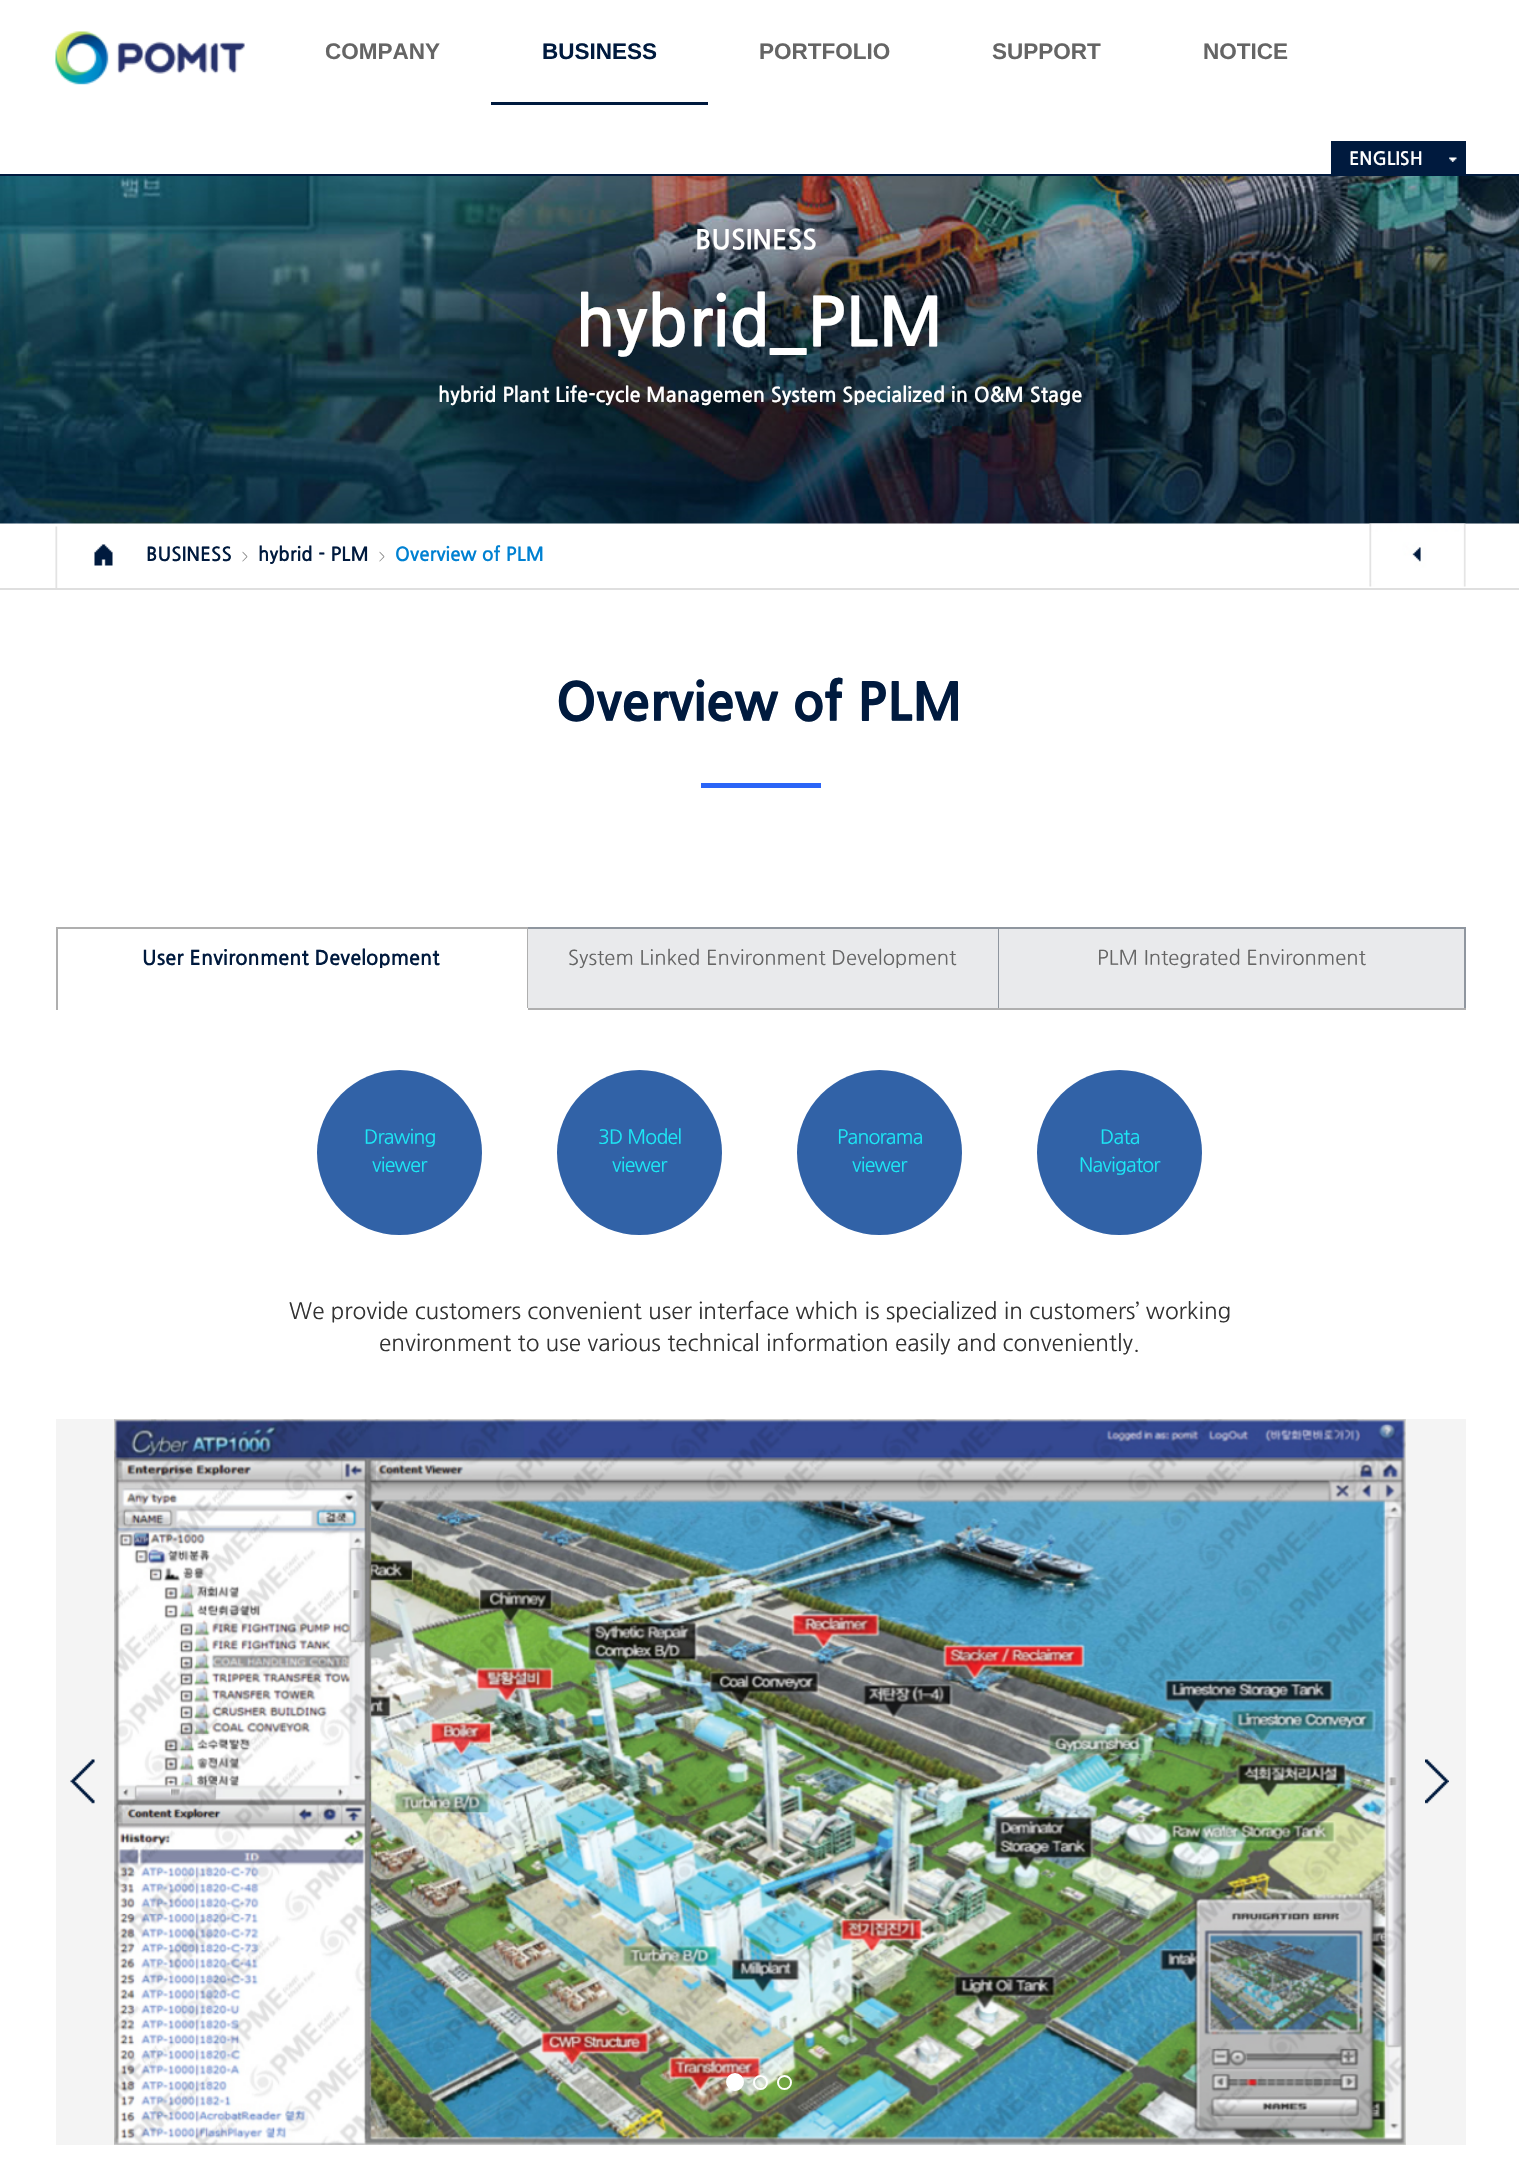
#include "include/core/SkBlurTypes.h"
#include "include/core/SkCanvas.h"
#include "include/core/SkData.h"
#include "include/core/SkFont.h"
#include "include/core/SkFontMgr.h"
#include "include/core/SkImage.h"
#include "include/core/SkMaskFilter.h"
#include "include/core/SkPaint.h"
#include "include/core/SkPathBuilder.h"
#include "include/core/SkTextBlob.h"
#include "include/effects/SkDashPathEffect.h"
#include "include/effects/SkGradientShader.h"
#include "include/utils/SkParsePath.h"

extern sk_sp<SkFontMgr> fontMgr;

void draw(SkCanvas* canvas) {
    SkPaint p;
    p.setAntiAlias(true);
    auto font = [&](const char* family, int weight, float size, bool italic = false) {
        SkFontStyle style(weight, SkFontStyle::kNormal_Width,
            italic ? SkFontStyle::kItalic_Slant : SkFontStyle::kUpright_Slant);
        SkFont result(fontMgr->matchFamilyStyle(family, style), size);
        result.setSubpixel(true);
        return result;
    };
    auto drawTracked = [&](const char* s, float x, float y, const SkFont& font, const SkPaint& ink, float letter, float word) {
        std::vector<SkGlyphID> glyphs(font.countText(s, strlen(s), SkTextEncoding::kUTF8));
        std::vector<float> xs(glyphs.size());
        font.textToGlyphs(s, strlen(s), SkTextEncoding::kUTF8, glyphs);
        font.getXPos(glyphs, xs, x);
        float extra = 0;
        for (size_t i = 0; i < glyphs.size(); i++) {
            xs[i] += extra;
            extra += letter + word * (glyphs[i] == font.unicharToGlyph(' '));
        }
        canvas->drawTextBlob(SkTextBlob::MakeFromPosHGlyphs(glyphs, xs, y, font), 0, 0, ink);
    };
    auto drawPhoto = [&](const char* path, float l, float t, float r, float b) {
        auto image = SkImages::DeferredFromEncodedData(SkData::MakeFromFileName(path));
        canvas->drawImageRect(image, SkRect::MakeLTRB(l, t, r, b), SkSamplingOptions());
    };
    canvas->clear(0xFFFFFFFF);
    p.setColor(0xFF001A3E);
    canvas->drawRect(SkRect::MakeLTRB(0, 174, 1519, 176), p);
    drawPhoto("media/1.png", 55, 31, 245, 85);
    auto font1 = font("Liberation Sans", 700, 22.5f);
    p.setColor(0xFF656565);
    canvas->drawString("COMPANY", 325, 59, font1, p);
    p.setColor(0xFF001A3E);
    canvas->drawRect(SkRect::MakeLTRB(491, 102, 708, 105), p);
    canvas->drawString("BUSINESS", 542, 59, font1, p);
    p.setColor(0xFF656565);
    {
        const struct { const char* s; float x, y; } items[] = {
            {"PORTFOLIO", 759, 59},
            {"SUPPORT", 992, 59},
            {"NOTICE", 1203, 59},
        };
        for (auto [s, x, y] : items) {
            canvas->drawString(s, x, y, font1, p);
        }
    }
    p.setColor(0xFF001A3E);
    canvas->drawRect(SkRect::MakeLTRB(1331, 141, 1466, 174), p);
    auto font2 = font("NanumGothic", 700, 18);
    p.setColor(0xFFFFFFFF);
    canvas->drawString("ENGLISH", 1349, 164, font2, p);
    drawPhoto("media/2.png", 1449, 157, 1457, 162);
    drawPhoto("media/3.png", 0, 176, 1519, 524);
    auto font3 = font("NanumGothic", 700, 27);
    canvas->drawString("BUSINESS", 695, 248, font3, p);
    auto font4 = font("NanumGothic", 700, 67.5f);
    canvas->drawString("hybrid_PLM", 575, 343, font4, p);
    auto font5 = font("NanumGothic", 700, 20.25f);
    canvas->drawString("hybrid Plant Life-cycle Managemen System Specialized in O&M Stage", 438, 401, font5, p);
    p.setColor(0xFFDFDFDF);
    canvas->drawRect(SkRect::MakeLTRB(0, 588, 1519, 590), p);
    drawPhoto("media/4.png", 55, 526, 113, 588);
    auto font6 = font("NanumGothic", 700, 19);
    p.setColor(0xFF001A3E);
    canvas->drawString("BUSINESS", 146, 560, font6, p);
    auto font7 = font("NanumGothic", 400, 11);
    p.setColor(0xFF888888);
    canvas->drawString(">", 242, 560, font7, p);
    p.setColor(0xFF001A3E);
    canvas->drawString("hybrid - PLM", 258, 560, font6, p);
    p.setColor(0xFF888888);
    canvas->drawString(">", 379, 560, font7, p);
    p.setColor(0xFF0081D2);
    canvas->drawString("Overview of PLM", 395, 560, font6, p);
    drawPhoto("media/5.png", 1369, 523, 1466, 587);
    auto font8 = font("NanumGothic", 800, 51.75f);
    p.setColor(0xFF001A3E);
    canvas->drawString("Overview of PLM", 556, 718, font8, p);
    {
        const struct { float l, t, r, b; SkColor color; } items[] = {
            {701, 783, 821, 788, 0xFF2B65F7},
            {56, 927, 528, 929, 0xFFAFAFAF},
            {527, 927, 528, 1010, 0xFFAFAFAF},
            {527, 1008, 528, 1010, 0xFFFFFFFF},
            {56, 927, 58, 1010, 0xFFAFAFAF},
        };
        for (auto [l, t, r, b, color] : items) {
            p.setColor(color);
            canvas->drawRect(SkRect::MakeLTRB(l, t, r, b), p);
        }
    }
    p.setColor(0xFF001A3E);
    canvas->drawString("User Environment Development", 142, 964, font5, p);
    {
        const struct { float l, t, r, b; SkColor color; } items[] = {
            {528, 929, 998, 1008, 0xFFE9EAEC},
            {528, 927, 1466, 929, 0xFF8F969F},
            {998, 927, 999, 1010, 0xFF8F969F},
            {528, 1008, 999, 1010, 0xFFAFAFAF},
        };
        for (auto [l, t, r, b, color] : items) {
            p.setColor(color);
            canvas->drawRect(SkRect::MakeLTRB(l, t, r, b), p);
        }
    }
    auto font9 = font("NanumGothic", 400, 20.25f);
    p.setColor(0xFF656565);
    canvas->drawString("System Linked Environment Development", 568, 964, font9, p);
    {
        const struct { float l, t, r, b; SkColor color; } items[] = {
            {999, 929, 1464, 1008, 0xFFE9EAEC},
            {1464, 927, 1466, 1010, 0xFF8F969F},
            {999, 1008, 1466, 1010, 0xFFAFAFAF},
        };
        for (auto [l, t, r, b, color] : items) {
            p.setColor(color);
            canvas->drawRect(SkRect::MakeLTRB(l, t, r, b), p);
        }
    }
    p.setColor(0xFF656565);
    canvas->drawString("PLM Integrated Environment", 1097, 964, font9, p);
    p.setColor(0xFF3162A7);
    canvas->drawCircle(399.5f, 1152.5f, 82.5f, p);
    auto font10 = font("NanumGothic", 400, 19.5f);
    p.setColor(0xFF1CE8F6);
    drawTracked("Drawing", 364, 1143, font10, p, -0.75f, 0);
    drawTracked("viewer", 372, 1171, font10, p, -0.75f, 0);
    p.setColor(0xFF3162A7);
    canvas->drawCircle(639.5f, 1152.5f, 82.5f, p);
    p.setColor(0xFF1CE8F6);
    drawTracked("3D Model", 598, 1143, font10, p, -0.75f, 0);
    drawTracked("viewer", 612, 1171, font10, p, -0.75f, 0);
    p.setColor(0xFF3162A7);
    canvas->drawCircle(879.5f, 1152.5f, 82.5f, p);
    p.setColor(0xFF1CE8F6);
    drawTracked("Panorama", 837, 1143, font10, p, -0.75f, 0);
    drawTracked("viewer", 852, 1171, font10, p, -0.75f, 0);
    p.setColor(0xFF3162A7);
    canvas->drawCircle(1119.5f, 1152.5f, 82.5f, p);
    p.setColor(0xFF1CE8F6);
    drawTracked("Data", 1100, 1143, font10, p, -0.75f, 0);
    drawTracked("Navigator", 1079, 1171, font10, p, -0.75f, 0);
    auto font11 = font("NanumGothic", 400, 22.5f);
    p.setColor(0xFF333333);
    canvas->drawString("We provide customers convenient user interface which is specialized in customers’ working", 289, 1318, font11, p);
    canvas->drawString("environment to use various technical information easily and conveniently.", 379, 1350, font11, p);
    p.setColor(0xFFF4F4F4);
    canvas->drawRect(SkRect::MakeLTRB(56, 1419, 1466, 2145), p);
    drawPhoto("media/6.png", 114, 1419, 1406, 2145);
    drawPhoto("media/7.png", 70, 1759, 95, 1804);
    drawPhoto("media/8.png", 1425, 1759, 1449, 1804);
    p.setColor(0xFFFFFFFF);
    canvas->drawCircle(735, 2082, 8, p);
    p.setStyle(SkPaint::kStroke_Style);
    p.setStrokeWidth(2);
    canvas->drawCircle(735, 2082, 8, p);
    canvas->drawCircle(760.5f, 2082.5f, 6.5f, p);
    canvas->drawCircle(784.5f, 2082.5f, 6.5f, p);
}
